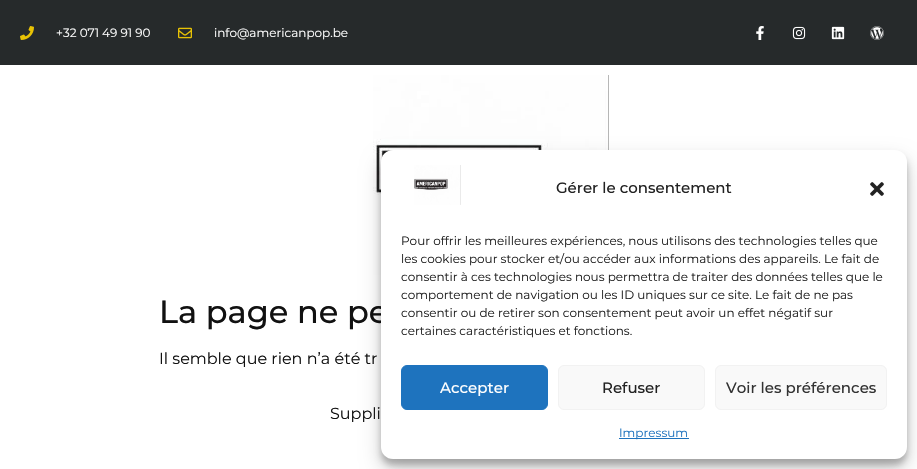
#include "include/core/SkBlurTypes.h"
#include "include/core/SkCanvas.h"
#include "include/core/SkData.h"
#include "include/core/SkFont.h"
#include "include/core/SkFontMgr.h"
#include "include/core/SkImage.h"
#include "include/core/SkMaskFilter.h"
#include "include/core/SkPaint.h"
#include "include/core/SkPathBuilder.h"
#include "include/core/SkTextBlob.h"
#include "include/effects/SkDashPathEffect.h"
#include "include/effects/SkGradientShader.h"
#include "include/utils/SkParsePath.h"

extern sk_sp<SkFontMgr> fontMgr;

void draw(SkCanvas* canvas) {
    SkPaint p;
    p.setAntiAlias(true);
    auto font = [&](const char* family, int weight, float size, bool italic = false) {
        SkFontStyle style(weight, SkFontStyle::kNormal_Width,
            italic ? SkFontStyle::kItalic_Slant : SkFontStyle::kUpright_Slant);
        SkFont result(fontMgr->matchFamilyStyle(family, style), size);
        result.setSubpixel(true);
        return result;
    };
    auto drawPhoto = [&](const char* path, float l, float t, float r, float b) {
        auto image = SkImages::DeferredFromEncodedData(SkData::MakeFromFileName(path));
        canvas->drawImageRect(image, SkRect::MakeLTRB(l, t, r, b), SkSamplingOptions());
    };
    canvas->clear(0xFFFFFFFF);
    p.setColor(0xFF262A2B);
    canvas->drawRect(SkRect::MakeLTRB(0, 0, 917, 65), p);
    drawPhoto("media/1.png", 20, 26, 34, 40);
    auto font1 = font("Montserrat", 400, 12);
    p.setColor(0xFFFFFFFF);
    canvas->drawString("+32 071 49 91 90", 56, 37, font1, p);
    drawPhoto("media/2.png", 178, 27, 192, 39);
    canvas->drawString("info@americanpop.be", 214, 37, font1, p);
    drawPhoto("media/3.png", 756, 26, 764, 40);
    drawPhoto("media/4.png", 792, 26, 806, 40);
    drawPhoto("media/5.png", 831, 26, 845, 40);
    drawPhoto("media/6.png", 870, 26, 884, 40);
    drawPhoto("media/7.png", 373, 75, 609, 275);
    auto font2 = font("Montserrat", 500, 32);
    p.setColor(0xFF111111);
    canvas->drawString("La page ne pe", 159, 323, font2, p);
    auto font3 = font("Montserrat", 400, 16);
    canvas->drawString("Il semble que rien n’a été tr", 159, 364, font3, p);
    p.setColor(0x3B000000);
    p.setMaskFilter(SkMaskFilter::MakeBlur(kNormal_SkBlurStyle, 3));
    canvas->drawRoundRect(SkRect::MakeLTRB(381, 156, 907, 465), 12, 12, p);
    p.setMaskFilter(nullptr);
    p.setColor(0x30000000);
    p.setMaskFilter(SkMaskFilter::MakeBlur(kNormal_SkBlurStyle, 10));
    canvas->drawRoundRect(SkRect::MakeLTRB(381, 160, 907, 469), 12, 12, p);
    p.setMaskFilter(nullptr);
    p.setColor(0xFFFFFFFF);
    canvas->drawRoundRect(SkRect::MakeLTRB(381, 150, 907, 459), 12, 12, p);
    drawPhoto("media/8.png", 414, 165, 461, 205);
    auto font4 = font("Montserrat", 500, 15);
    p.setColor(0xFF222222);
    canvas->drawString("Gérer le consentement", 556, 193, font4, p);
    drawPhoto("media/9.png", 870, 182, 884, 196);
    {
        const struct { const char* s; float x, y; } items[] = {
            {"Pour offrir les meilleures expériences, nous utilisons des technologies telles que", 401, 245},
            {"les cookies pour stocker et/ou accéder aux informations des appareils. Le fait de", 401, 263},
            {"consentir à ces technologies nous permettra de traiter des données telles que le", 401, 281},
            {"comportement de navigation ou les ID uniques sur ce site. Le fait de ne pas", 401, 299},
            {"consentir ou de retirer son consentement peut avoir un effet négatif sur", 401, 317},
            {"certaines caractéristiques et fonctions.", 401, 335},
        };
        for (auto [s, x, y] : items) {
            canvas->drawString(s, x, y, font1, p);
        }
    }
    p.setColor(0xFF1E73BE);
    canvas->drawRoundRect(SkRect::MakeLTRB(401.5f, 365.5f, 547.5f, 409.5f), 5.5f, 5.5f, p);
    p.setStyle(SkPaint::kStroke_Style);
    p.setStrokeWidth(1);
    canvas->drawRoundRect(SkRect::MakeLTRB(401.5f, 365.5f, 547.5f, 409.5f), 5.5f, 5.5f, p);
    p.setStyle(SkPaint::kFill_Style);
    p.setColor(0xFFFFFFFF);
    canvas->drawString("Accepter", 440, 393, font4, p);
    p.setColor(0xFFF9F9F9);
    canvas->drawRoundRect(SkRect::MakeLTRB(558.5f, 365.5f, 704.5f, 409.5f), 5.5f, 5.5f, p);
    p.setStyle(SkPaint::kStroke_Style);
    p.setColor(0xFFF2F2F2);
    canvas->drawRoundRect(SkRect::MakeLTRB(558.5f, 365.5f, 704.5f, 409.5f), 5.5f, 5.5f, p);
    p.setStyle(SkPaint::kFill_Style);
    p.setColor(0xFF222222);
    canvas->drawString("Refuser", 602, 393, font4, p);
    p.setColor(0xFFF9F9F9);
    canvas->drawRoundRect(SkRect::MakeLTRB(715.5f, 365.5f, 886.5f, 409.5f), 5.5f, 5.5f, p);
    p.setStyle(SkPaint::kStroke_Style);
    p.setColor(0xFFF2F2F2);
    canvas->drawRoundRect(SkRect::MakeLTRB(715.5f, 365.5f, 886.5f, 409.5f), 5.5f, 5.5f, p);
    p.setStyle(SkPaint::kFill_Style);
    p.setColor(0xFF333333);
    canvas->drawString("Voir les préférences", 726, 393, font4, p);
    p.setColor(0xFF1E73BE);
    canvas->drawRect(SkRect::MakeLTRB(619, 438, 689, 439), p);
    canvas->drawString("Impressum", 619, 437, font1, p);
    p.setColor(0xFF111111);
    canvas->drawString("Suppli", 330, 419, font3, p);
}
